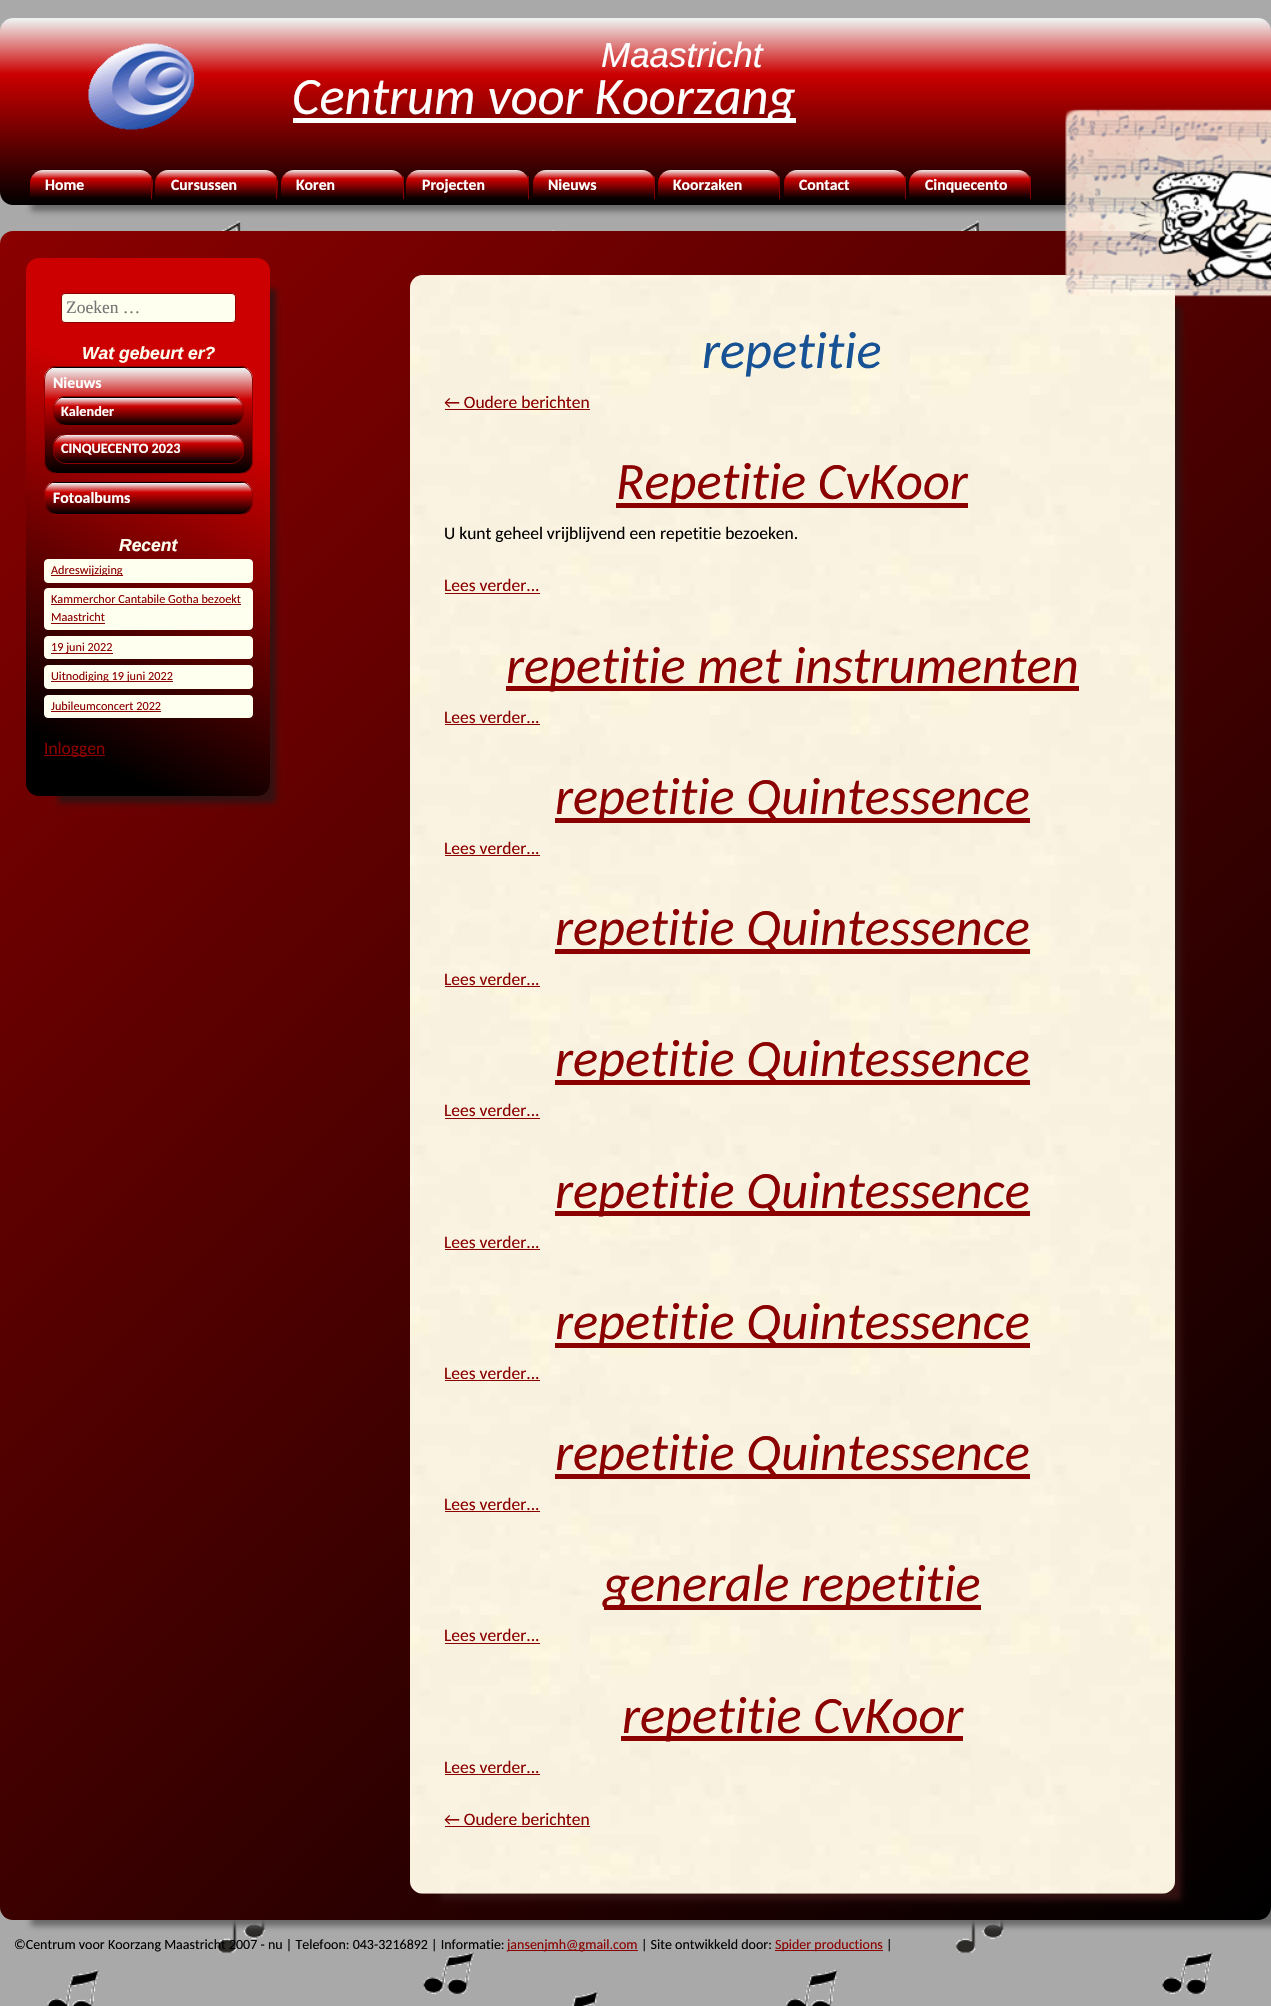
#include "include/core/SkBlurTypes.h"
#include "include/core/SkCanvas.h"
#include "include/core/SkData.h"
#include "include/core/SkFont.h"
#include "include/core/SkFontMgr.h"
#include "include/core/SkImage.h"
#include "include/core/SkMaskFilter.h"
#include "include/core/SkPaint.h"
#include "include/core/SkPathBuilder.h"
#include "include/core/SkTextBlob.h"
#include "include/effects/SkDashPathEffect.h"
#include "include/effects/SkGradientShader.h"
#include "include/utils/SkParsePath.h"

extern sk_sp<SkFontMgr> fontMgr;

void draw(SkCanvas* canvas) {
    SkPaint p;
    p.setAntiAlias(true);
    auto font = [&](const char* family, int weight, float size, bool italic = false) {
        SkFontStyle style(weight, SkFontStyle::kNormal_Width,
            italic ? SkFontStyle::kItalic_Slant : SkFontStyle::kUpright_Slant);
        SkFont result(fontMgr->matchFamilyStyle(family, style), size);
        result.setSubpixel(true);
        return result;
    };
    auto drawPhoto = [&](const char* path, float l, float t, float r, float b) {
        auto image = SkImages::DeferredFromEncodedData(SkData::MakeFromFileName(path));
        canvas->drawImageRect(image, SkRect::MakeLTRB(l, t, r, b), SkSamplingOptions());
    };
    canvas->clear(0xFFA9A9A9);
    drawPhoto("media/1.png", 47, 221, 1213, 2006);
    p.setColor(0xFF696969);
    p.setMaskFilter(SkMaskFilter::MakeBlur(kNormal_SkBlurStyle, 3));
    canvas->drawRect(SkRect::MakeLTRB(31, 49, 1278, 211), p);
    p.setMaskFilter(nullptr);
    {
        const SkColor colors[] = {0xFF000000, 0xFFCC0000, 0xFFEEEEEE};
        const float stops[] = {0, 0.7f, 0.99f};
        const SkPoint ends[] = {{636, 205}, {636, 18}};
        p.setShader(SkGradientShader::MakeLinear(ends, colors, stops, 3, SkTileMode::kClamp));
        p.setAlpha(255);
    }
    canvas->drawPath(SkPathBuilder().moveTo(13, 18).lineTo(1258, 18).cubicTo(1265, 18, 1271, 24, 1271, 31).lineTo(1271, 199).cubicTo(1271, 202.5f, 1268.5f, 205, 1265, 205).lineTo(13, 205).cubicTo(6, 205, 0, 199, 0, 192).lineTo(0, 31).cubicTo(0, 24, 6, 18, 13, 18).close().detach(), p);
    drawPhoto("media/2.png", 88, 43, 195, 130);
    auto font1 = font("Liberation Sans", 400, 35, true);
    p.setShader(nullptr);
    p.setColor(0xFFFFFFFF);
    canvas->drawString("Maastricht", 601, 67, font1, p);
    canvas->drawRect(SkRect::MakeLTRB(293, 118, 796, 123), p);
    auto font2 = font("Carlito", 400, 52.5f, true);
    canvas->drawString("Centrum voor Koorzang", 292, 114, font2, p);
    {
        const SkColor colors[] = {0xFF000000, 0xFFCC0000, 0xFFEEEEEE};
        const float stops[] = {0, 0.7f, 1};
        const SkPoint ends[] = {{91, 199}, {91, 170}};
        p.setShader(SkGradientShader::MakeLinear(ends, colors, stops, 3, SkTileMode::kClamp));
        p.setAlpha(255);
    }
    canvas->drawPath(SkPathBuilder().moveTo(43, 170).lineTo(140, 170).cubicTo(147, 170, 153, 176, 153, 183).lineTo(153, 199).lineTo(30, 199).lineTo(30, 183).cubicTo(30, 176, 36, 170, 43, 170).close().detach(), p);
    p.setShader(nullptr);
    p.setColor(0xFF8B0000);
    canvas->drawRect(SkRect::MakeLTRB(151, 176, 152, 199), p);
    auto font3 = font("Carlito", 700, 15.75f);
    p.setColor(0xFFFFFFFF);
    canvas->drawString("Home", 45, 190, font3, p);
    {
        const SkColor colors[] = {0xFF000000, 0xFFCC0000, 0xFFEEEEEE};
        const float stops[] = {0, 0.7f, 1};
        const SkPoint ends[] = {{216, 199}, {216, 170}};
        p.setShader(SkGradientShader::MakeLinear(ends, colors, stops, 3, SkTileMode::kClamp));
        p.setAlpha(255);
    }
    canvas->drawPath(SkPathBuilder().moveTo(168, 170).lineTo(265, 170).cubicTo(272, 170, 278, 176, 278, 183).lineTo(278, 199).lineTo(155, 199).lineTo(155, 183).cubicTo(155, 176, 161, 170, 168, 170).close().detach(), p);
    p.setShader(nullptr);
    p.setColor(0xFF8B0000);
    canvas->drawRect(SkRect::MakeLTRB(276, 176, 277, 199), p);
    p.setColor(0xFFFFFFFF);
    canvas->drawString("Cursussen", 171, 190, font3, p);
    {
        const SkColor colors[] = {0xFF000000, 0xFFCC0000, 0xFFEEEEEE};
        const float stops[] = {0, 0.7f, 1};
        const SkPoint ends[] = {{342, 199}, {342, 170}};
        p.setShader(SkGradientShader::MakeLinear(ends, colors, stops, 3, SkTileMode::kClamp));
        p.setAlpha(255);
    }
    canvas->drawPath(SkPathBuilder().moveTo(294, 170).lineTo(391, 170).cubicTo(398, 170, 404, 176, 404, 183).lineTo(404, 199).lineTo(281, 199).lineTo(281, 183).cubicTo(281, 176, 287, 170, 294, 170).close().detach(), p);
    p.setShader(nullptr);
    p.setColor(0xFF8B0000);
    canvas->drawRect(SkRect::MakeLTRB(403, 176, 404, 199), p);
    p.setColor(0xFFFFFFFF);
    canvas->drawString("Koren", 296, 190, font3, p);
    {
        const SkColor colors[] = {0xFF000000, 0xFFCC0000, 0xFFEEEEEE};
        const float stops[] = {0, 0.7f, 1};
        const SkPoint ends[] = {{467, 199}, {467, 170}};
        p.setShader(SkGradientShader::MakeLinear(ends, colors, stops, 3, SkTileMode::kClamp));
        p.setAlpha(255);
    }
    canvas->drawPath(SkPathBuilder().moveTo(419, 170).lineTo(516, 170).cubicTo(523, 170, 529, 176, 529, 183).lineTo(529, 199).lineTo(406, 199).lineTo(406, 183).cubicTo(406, 176, 412, 170, 419, 170).close().detach(), p);
    p.setShader(nullptr);
    p.setColor(0xFF8B0000);
    canvas->drawRect(SkRect::MakeLTRB(528, 176, 529, 199), p);
    p.setColor(0xFFFFFFFF);
    canvas->drawString("Projecten", 422, 190, font3, p);
    {
        const SkColor colors[] = {0xFF000000, 0xFFCC0000, 0xFFEEEEEE};
        const float stops[] = {0, 0.7f, 1};
        const SkPoint ends[] = {{593, 199}, {593, 170}};
        p.setShader(SkGradientShader::MakeLinear(ends, colors, stops, 3, SkTileMode::kClamp));
        p.setAlpha(255);
    }
    canvas->drawPath(SkPathBuilder().moveTo(546, 170).lineTo(642, 170).cubicTo(649, 170, 655, 176, 655, 183).lineTo(655, 199).lineTo(533, 199).lineTo(533, 183).cubicTo(533, 176, 539, 170, 546, 170).close().detach(), p);
    p.setShader(nullptr);
    p.setColor(0xFF8B0000);
    canvas->drawRect(SkRect::MakeLTRB(654, 176, 655, 199), p);
    p.setColor(0xFFFFFFFF);
    canvas->drawString("Nieuws", 548, 190, font3, p);
    {
        const SkColor colors[] = {0xFF000000, 0xFFCC0000, 0xFFEEEEEE};
        const float stops[] = {0, 0.7f, 1};
        const SkPoint ends[] = {{718, 199}, {718, 170}};
        p.setShader(SkGradientShader::MakeLinear(ends, colors, stops, 3, SkTileMode::kClamp));
        p.setAlpha(255);
    }
    canvas->drawPath(SkPathBuilder().moveTo(671, 170).lineTo(767, 170).cubicTo(774, 170, 780, 176, 780, 183).lineTo(780, 199).lineTo(658, 199).lineTo(658, 183).cubicTo(658, 176, 664, 170, 671, 170).close().detach(), p);
    p.setShader(nullptr);
    p.setColor(0xFF8B0000);
    canvas->drawRect(SkRect::MakeLTRB(779, 176, 780, 199), p);
    p.setColor(0xFFFFFFFF);
    canvas->drawString("Koorzaken", 673, 190, font3, p);
    {
        const SkColor colors[] = {0xFF000000, 0xFFCC0000, 0xFFEEEEEE};
        const float stops[] = {0, 0.7f, 1};
        const SkPoint ends[] = {{844, 199}, {844, 170}};
        p.setShader(SkGradientShader::MakeLinear(ends, colors, stops, 3, SkTileMode::kClamp));
        p.setAlpha(255);
    }
    canvas->drawPath(SkPathBuilder().moveTo(797, 170).lineTo(893, 170).cubicTo(900, 170, 906, 176, 906, 183).lineTo(906, 199).lineTo(784, 199).lineTo(784, 183).cubicTo(784, 176, 790, 170, 797, 170).close().detach(), p);
    p.setShader(nullptr);
    p.setColor(0xFF8B0000);
    canvas->drawRect(SkRect::MakeLTRB(905, 176, 906, 199), p);
    p.setColor(0xFFFFFFFF);
    canvas->drawString("Contact", 799, 190, font3, p);
    {
        const SkColor colors[] = {0xFF000000, 0xFFCC0000, 0xFFEEEEEE};
        const float stops[] = {0, 0.7f, 1};
        const SkPoint ends[] = {{969, 199}, {969, 170}};
        p.setShader(SkGradientShader::MakeLinear(ends, colors, stops, 3, SkTileMode::kClamp));
        p.setAlpha(255);
    }
    canvas->drawPath(SkPathBuilder().moveTo(922, 170).lineTo(1018, 170).cubicTo(1025, 170, 1031, 176, 1031, 183).lineTo(1031, 199).lineTo(909, 199).lineTo(909, 183).cubicTo(909, 176, 915, 170, 922, 170).close().detach(), p);
    p.setShader(nullptr);
    p.setColor(0xFF8B0000);
    canvas->drawRect(SkRect::MakeLTRB(1030, 176, 1031, 199), p);
    p.setColor(0xFFFFFFFF);
    canvas->drawString("Cinquecento", 925, 190, font3, p);
    p.setColor(0xFF696969);
    p.setMaskFilter(SkMaskFilter::MakeBlur(kNormal_SkBlurStyle, 3));
    canvas->drawRect(SkRect::MakeLTRB(31, 263, 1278, 1926), p);
    p.setMaskFilter(nullptr);
    {
        const SkColor colors[] = {0xFF000000, 0xFF8B0000};
        const float stops[] = {0, 1};
        const SkPoint ends[] = {{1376, 1816}, {-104, 336}};
        p.setShader(SkGradientShader::MakeLinear(ends, colors, stops, 2, SkTileMode::kClamp));
        p.setAlpha(255);
    }
    canvas->drawRoundRect(SkRect::MakeLTRB(0, 231, 1271, 1920), 13, 13, p);
    p.setShader(nullptr);
    p.setColor(0xFF331111);
    p.setMaskFilter(SkMaskFilter::MakeBlur(kNormal_SkBlurStyle, 3));
    canvas->drawRect(SkRect::MakeLTRB(58, 289, 276, 803), p);
    p.setMaskFilter(nullptr);
    {
        const SkColor colors[] = {0xFF000000, 0xFFCC0000};
        const float stops[] = {0.1f, 0.7f};
        const SkPoint ends[] = {{23, 795}, {273, 259}};
        p.setShader(SkGradientShader::MakeLinear(ends, colors, stops, 2, SkTileMode::kClamp));
        p.setAlpha(255);
    }
    canvas->drawRoundRect(SkRect::MakeLTRB(26, 258, 270, 796), 13, 13, p);
    p.setShader(nullptr);
    p.setColor(0xFFFFFFF0);
    canvas->drawRoundRect(SkRect::MakeLTRB(61.5f, 293.5f, 235.5f, 322.5f), 3.5f, 3.5f, p);
    p.setStyle(SkPaint::kStroke_Style);
    p.setStrokeWidth(1);
    p.setColor(0xFF8B0000);
    canvas->drawRoundRect(SkRect::MakeLTRB(61.5f, 293.5f, 235.5f, 322.5f), 3.5f, 3.5f, p);
    auto font4 = font("Liberation Serif", 400, 17.5f);
    p.setStyle(SkPaint::kFill_Style);
    p.setColor(0xFF757575);
    canvas->drawString("Zoeken …", 66, 313, font4, p);
    auto font5 = font("Liberation Sans", 700, 17.5f, true);
    p.setColor(0xFFFFFFF0);
    canvas->drawString("Wat gebeurt er?", 82, 359, font5, p);
    canvas->save();
    canvas->clipPath(SkPathBuilder().moveTo(57, 366).lineTo(240, 366).cubicTo(247, 366, 253, 372, 253, 379).lineTo(253, 461).cubicTo(253, 468, 247, 474, 240, 474).lineTo(57, 474).cubicTo(50, 474, 44, 468, 44, 461).lineTo(44, 379).cubicTo(44, 372, 50, 366, 57, 366).close().detach(), true);
    {
        const SkColor colors[] = {0xFF000000, 0xFFCC0000, 0xFFEEEEEE};
        const float stops[] = {0, 0.7f, 0.99f};
        const SkPoint ends[] = {{148, 368}, {148, 263}};
        p.setShader(SkGradientShader::MakeLinear(ends, colors, stops, 3, SkTileMode::kClamp));
        p.setAlpha(255);
    }
    canvas->drawRect(SkRect::MakeLTRB(44, 366, 253, 368), p);
    {
        const SkColor colors[] = {0xFF000000, 0xFFCC0000, 0xFFEEEEEE};
        const float stops[] = {0, 0.7f, 0.99f};
        const SkPoint ends[] = {{148, 473}, {148, 368}};
        p.setShader(SkGradientShader::MakeLinear(ends, colors, stops, 3, SkTileMode::kClamp));
        p.setAlpha(255);
    }
    canvas->drawRect(SkRect::MakeLTRB(44, 368, 253, 473), p);
    canvas->restore();
    p.setStyle(SkPaint::kStroke_Style);
    p.setShader(nullptr);
    p.setColor(0xFF8B0000);
    canvas->drawRoundRect(SkRect::MakeLTRB(44.5f, 366.5f, 252.5f, 473.5f), 12.5f, 12.5f, p);
    p.setStyle(SkPaint::kFill_Style);
    p.setColor(0xFFFFFFFF);
    canvas->drawString("Nieuws", 53, 388, font3, p);
    canvas->save();
    canvas->clipPath(SkPathBuilder().moveTo(66, 396).lineTo(231, 396).cubicTo(238, 396, 244, 402, 244, 409).lineTo(244, 413).cubicTo(244, 420, 238, 426, 231, 426).lineTo(66, 426).cubicTo(59, 426, 53, 420, 53, 413).lineTo(53, 409).cubicTo(53, 402, 59, 396, 66, 396).close().detach(), true);
    {
        const SkColor colors[] = {0xFF000000, 0xFFCC0000, 0xFFEEEEEE};
        const float stops[] = {0, 0.7f, 0.99f};
        const SkPoint ends[] = {{148, 398}, {148, 370}};
        p.setShader(SkGradientShader::MakeLinear(ends, colors, stops, 3, SkTileMode::kClamp));
        p.setAlpha(255);
    }
    canvas->drawRect(SkRect::MakeLTRB(53, 396, 244, 398), p);
    {
        const SkColor colors[] = {0xFF000000, 0xFFCC0000, 0xFFEEEEEE};
        const float stops[] = {0, 0.7f, 0.99f};
        const SkPoint ends[] = {{148, 425}, {148, 398}};
        p.setShader(SkGradientShader::MakeLinear(ends, colors, stops, 3, SkTileMode::kClamp));
        p.setAlpha(255);
    }
    canvas->drawRect(SkRect::MakeLTRB(53, 398, 244, 425), p);
    canvas->restore();
    p.setStyle(SkPaint::kStroke_Style);
    p.setShader(nullptr);
    p.setColor(0xFF8B0000);
    canvas->drawRoundRect(SkRect::MakeLTRB(53.5f, 396.5f, 243.5f, 425.5f), 12.5f, 12.5f, p);
    auto font6 = font("Carlito", 700, 14.25f);
    p.setStyle(SkPaint::kFill_Style);
    p.setColor(0xFFFFFFFF);
    canvas->drawString("Kalender", 61, 416, font6, p);
    canvas->save();
    canvas->clipPath(SkPathBuilder().moveTo(66, 434).lineTo(231, 434).cubicTo(238, 434, 244, 440, 244, 447).lineTo(244, 451).cubicTo(244, 458, 238, 464, 231, 464).lineTo(66, 464).cubicTo(59, 464, 53, 458, 53, 451).lineTo(53, 447).cubicTo(53, 440, 59, 434, 66, 434).close().detach(), true);
    {
        const SkColor colors[] = {0xFF000000, 0xFFCC0000, 0xFFEEEEEE};
        const float stops[] = {0, 0.7f, 0.99f};
        const SkPoint ends[] = {{148, 463}, {148, 435}};
        p.setShader(SkGradientShader::MakeLinear(ends, colors, stops, 3, SkTileMode::kClamp));
        p.setAlpha(255);
    }
    canvas->drawRect(SkRect::MakeLTRB(53, 435, 244, 463), p);
    canvas->restore();
    p.setStyle(SkPaint::kStroke_Style);
    p.setShader(nullptr);
    p.setColor(0xFF8B0000);
    canvas->drawRoundRect(SkRect::MakeLTRB(53.5f, 434.5f, 243.5f, 463.5f), 12.5f, 12.5f, p);
    p.setStyle(SkPaint::kFill_Style);
    p.setColor(0xFFFFFFFF);
    canvas->drawString("CINQUECENTO 2023", 61, 453, font6, p);
    canvas->save();
    canvas->clipPath(SkPathBuilder().moveTo(57, 481).lineTo(240, 481).cubicTo(247, 481, 253, 487, 253, 494).lineTo(253, 502).cubicTo(253, 509, 247, 515, 240, 515).lineTo(57, 515).cubicTo(50, 515, 44, 509, 44, 502).lineTo(44, 494).cubicTo(44, 487, 50, 481, 57, 481).close().detach(), true);
    {
        const SkColor colors[] = {0xFF000000, 0xFFCC0000, 0xFFEEEEEE};
        const float stops[] = {0, 0.7f, 0.99f};
        const SkPoint ends[] = {{148, 483}, {148, 451}};
        p.setShader(SkGradientShader::MakeLinear(ends, colors, stops, 3, SkTileMode::kClamp));
        p.setAlpha(255);
    }
    canvas->drawRect(SkRect::MakeLTRB(44, 481, 253, 483), p);
    {
        const SkColor colors[] = {0xFF000000, 0xFFCC0000, 0xFFEEEEEE};
        const float stops[] = {0, 0.7f, 0.99f};
        const SkPoint ends[] = {{148, 514}, {148, 483}};
        p.setShader(SkGradientShader::MakeLinear(ends, colors, stops, 3, SkTileMode::kClamp));
        p.setAlpha(255);
    }
    canvas->drawRect(SkRect::MakeLTRB(44, 483, 253, 514), p);
    canvas->restore();
    p.setStyle(SkPaint::kStroke_Style);
    p.setShader(nullptr);
    p.setColor(0xFF8B0000);
    canvas->drawRoundRect(SkRect::MakeLTRB(44.5f, 481.5f, 252.5f, 514.5f), 12.5f, 12.5f, p);
    p.setStyle(SkPaint::kFill_Style);
    p.setColor(0xFFFFFFFF);
    canvas->drawString("Fotoalbums", 53, 503, font3, p);
    p.setColor(0xFFFFFFF0);
    canvas->drawString("Recent", 119, 551, font5, p);
    canvas->drawRoundRect(SkRect::MakeLTRB(44.5f, 559.5f, 252.5f, 582.5f), 3.5f, 3.5f, p);
    p.setStyle(SkPaint::kStroke_Style);
    canvas->drawRoundRect(SkRect::MakeLTRB(44.5f, 559.5f, 252.5f, 582.5f), 3.5f, 3.5f, p);
    p.setStyle(SkPaint::kFill_Style);
    p.setColor(0xFF8B0000);
    canvas->drawRect(SkRect::MakeLTRB(51, 575, 123, 576), p);
    auto font7 = font("Carlito", 400, 12.25f);
    canvas->drawString("Adreswijziging", 51, 574, font7, p);
    p.setColor(0xFFFFFFF0);
    canvas->drawRoundRect(SkRect::MakeLTRB(44.5f, 588.5f, 252.5f, 629.5f), 3.5f, 3.5f, p);
    p.setStyle(SkPaint::kStroke_Style);
    canvas->drawRoundRect(SkRect::MakeLTRB(44.5f, 588.5f, 252.5f, 629.5f), 3.5f, 3.5f, p);
    p.setStyle(SkPaint::kFill_Style);
    p.setColor(0xFF8B0000);
    canvas->drawString("Kammerchor Cantabile Gotha bezoekt", 51, 603, font7, p);
    canvas->drawRect(SkRect::MakeLTRB(51, 604, 241, 605), p);
    canvas->drawString("Maastricht", 51, 621, font7, p);
    canvas->drawRect(SkRect::MakeLTRB(51, 623, 105, 624), p);
    p.setColor(0xFFFFFFF0);
    canvas->drawRoundRect(SkRect::MakeLTRB(44.5f, 636.5f, 252.5f, 658.5f), 3.5f, 3.5f, p);
    p.setStyle(SkPaint::kStroke_Style);
    canvas->drawRoundRect(SkRect::MakeLTRB(44.5f, 636.5f, 252.5f, 658.5f), 3.5f, 3.5f, p);
    p.setStyle(SkPaint::kFill_Style);
    p.setColor(0xFF8B0000);
    canvas->drawRect(SkRect::MakeLTRB(51, 653, 113, 654), p);
    canvas->drawString("19 juni 2022", 51, 651, font7, p);
    p.setColor(0xFFFFFFF0);
    canvas->drawRoundRect(SkRect::MakeLTRB(44.5f, 665.5f, 252.5f, 688.5f), 3.5f, 3.5f, p);
    p.setStyle(SkPaint::kStroke_Style);
    canvas->drawRoundRect(SkRect::MakeLTRB(44.5f, 665.5f, 252.5f, 688.5f), 3.5f, 3.5f, p);
    p.setStyle(SkPaint::kFill_Style);
    p.setColor(0xFF8B0000);
    canvas->drawRect(SkRect::MakeLTRB(51, 681, 173, 682), p);
    canvas->drawString("Uitnodiging 19 juni 2022", 51, 680, font7, p);
    p.setColor(0xFFFFFFF0);
    canvas->drawRoundRect(SkRect::MakeLTRB(44.5f, 695.5f, 252.5f, 717.5f), 3.5f, 3.5f, p);
    p.setStyle(SkPaint::kStroke_Style);
    canvas->drawRoundRect(SkRect::MakeLTRB(44.5f, 695.5f, 252.5f, 717.5f), 3.5f, 3.5f, p);
    p.setStyle(SkPaint::kFill_Style);
    p.setColor(0xFF8B0000);
    canvas->drawString("Jubileumconcert 2022", 51, 710, font7, p);
    canvas->drawRect(SkRect::MakeLTRB(51, 711, 161, 712), p);
    canvas->drawRect(SkRect::MakeLTRB(44, 755, 105, 756), p);
    auto font8 = font("Carlito", 400, 17.5f);
    canvas->drawString("Inloggen", 44, 754, font8, p);
    p.setColor(0xFF331111);
    p.setMaskFilter(SkMaskFilter::MakeBlur(kNormal_SkBlurStyle, 3));
    canvas->drawRect(SkRect::MakeLTRB(441, 306, 1181, 1900), p);
    p.setMaskFilter(nullptr);
    drawPhoto("media/4.png", 410, 275, 1175, 1894);
    drawPhoto("media/3.png", 1065, 108, 1271, 297);
    p.setColor(0xFF165294);
    canvas->drawString("repetitie", 702, 368, font2, p);
    p.setColor(0xFF8B0000);
    canvas->drawString("← Oudere berichten", 444, 408, font8, p);
    canvas->drawRect(SkRect::MakeLTRB(445, 409, 590, 410), p);
    canvas->drawRect(SkRect::MakeLTRB(616, 503, 968, 508), p);
    canvas->drawString("Repetitie CvKoor", 616, 499, font2, p);
    p.setColor(0xFF000000);
    canvas->drawString("U kunt geheel vrijblijvend een repetitie bezoeken.", 444, 539, font8, p);
    p.setColor(0xFF8B0000);
    canvas->drawString("Lees verder...", 444, 591, font8, p);
    canvas->drawRect(SkRect::MakeLTRB(445, 593, 540, 594), p);
    canvas->drawRect(SkRect::MakeLTRB(506, 686, 1079, 691), p);
    canvas->drawString("repetitie met instrumenten", 506, 683, font2, p);
    canvas->drawString("Lees verder...", 444, 723, font8, p);
    canvas->drawRect(SkRect::MakeLTRB(445, 724, 540, 725), p);
    canvas->drawRect(SkRect::MakeLTRB(555, 818, 1030, 823), p);
    canvas->drawString("repetitie Quintessence", 555, 814, font2, p);
    canvas->drawString("Lees verder...", 444, 854, font8, p);
    canvas->drawRect(SkRect::MakeLTRB(445, 855, 540, 856), p);
    canvas->drawRect(SkRect::MakeLTRB(555, 949, 1030, 954), p);
    canvas->drawString("repetitie Quintessence", 555, 945, font2, p);
    canvas->drawString("Lees verder...", 444, 985, font8, p);
    canvas->drawRect(SkRect::MakeLTRB(445, 986, 540, 987), p);
    canvas->drawRect(SkRect::MakeLTRB(555, 1080, 1030, 1085), p);
    canvas->drawString("repetitie Quintessence", 555, 1076, font2, p);
    canvas->drawString("Lees verder...", 444, 1116, font8, p);
    canvas->drawRect(SkRect::MakeLTRB(445, 1118, 540, 1119), p);
    canvas->drawRect(SkRect::MakeLTRB(555, 1211, 1030, 1216), p);
    canvas->drawString("repetitie Quintessence", 555, 1208, font2, p);
    canvas->drawString("Lees verder...", 444, 1248, font8, p);
    canvas->drawRect(SkRect::MakeLTRB(445, 1249, 540, 1250), p);
    canvas->drawRect(SkRect::MakeLTRB(555, 1343, 1030, 1348), p);
    canvas->drawString("repetitie Quintessence", 555, 1339, font2, p);
    canvas->drawString("Lees verder...", 444, 1379, font8, p);
    canvas->drawRect(SkRect::MakeLTRB(445, 1380, 540, 1381), p);
    canvas->drawRect(SkRect::MakeLTRB(555, 1474, 1030, 1479), p);
    canvas->drawString("repetitie Quintessence", 555, 1470, font2, p);
    canvas->drawString("Lees verder...", 444, 1510, font8, p);
    canvas->drawRect(SkRect::MakeLTRB(445, 1511, 540, 1512), p);
    canvas->drawRect(SkRect::MakeLTRB(604, 1605, 981, 1610), p);
    canvas->drawString("generale repetitie", 603, 1601, font2, p);
    canvas->drawString("Lees verder...", 444, 1641, font8, p);
    canvas->drawRect(SkRect::MakeLTRB(445, 1643, 540, 1644), p);
    canvas->drawRect(SkRect::MakeLTRB(621, 1736, 963, 1741), p);
    canvas->drawString("repetitie CvKoor", 622, 1733, font2, p);
    canvas->drawString("Lees verder...", 444, 1773, font8, p);
    canvas->drawRect(SkRect::MakeLTRB(445, 1774, 540, 1775), p);
    canvas->drawString("← Oudere berichten", 444, 1825, font8, p);
    canvas->drawRect(SkRect::MakeLTRB(445, 1826, 590, 1827), p);
    auto font9 = font("Carlito", 400, 14);
    p.setColor(0xFF000000);
    canvas->drawString("©Centrum voor Koorzang Maastricht 2007 - nu | Telefoon: 043-3216892 | Informatie:", 14, 1949, font9, p);
    p.setColor(0xFF8B0000);
    canvas->drawRect(SkRect::MakeLTRB(508, 1950, 638, 1951), p);
    canvas->drawString("jansenjmh@gmail.com", 507, 1949, font9, p);
    p.setColor(0xFF000000);
    canvas->drawString("| Site ontwikkeld door:", 641, 1949, font9, p);
    p.setColor(0xFF8B0000);
    canvas->drawRect(SkRect::MakeLTRB(775, 1950, 883, 1951), p);
    canvas->drawString("Spider productions", 775, 1949, font9, p);
    p.setColor(0xFF000000);
    canvas->drawString("|", 886, 1949, font9, p);
}
